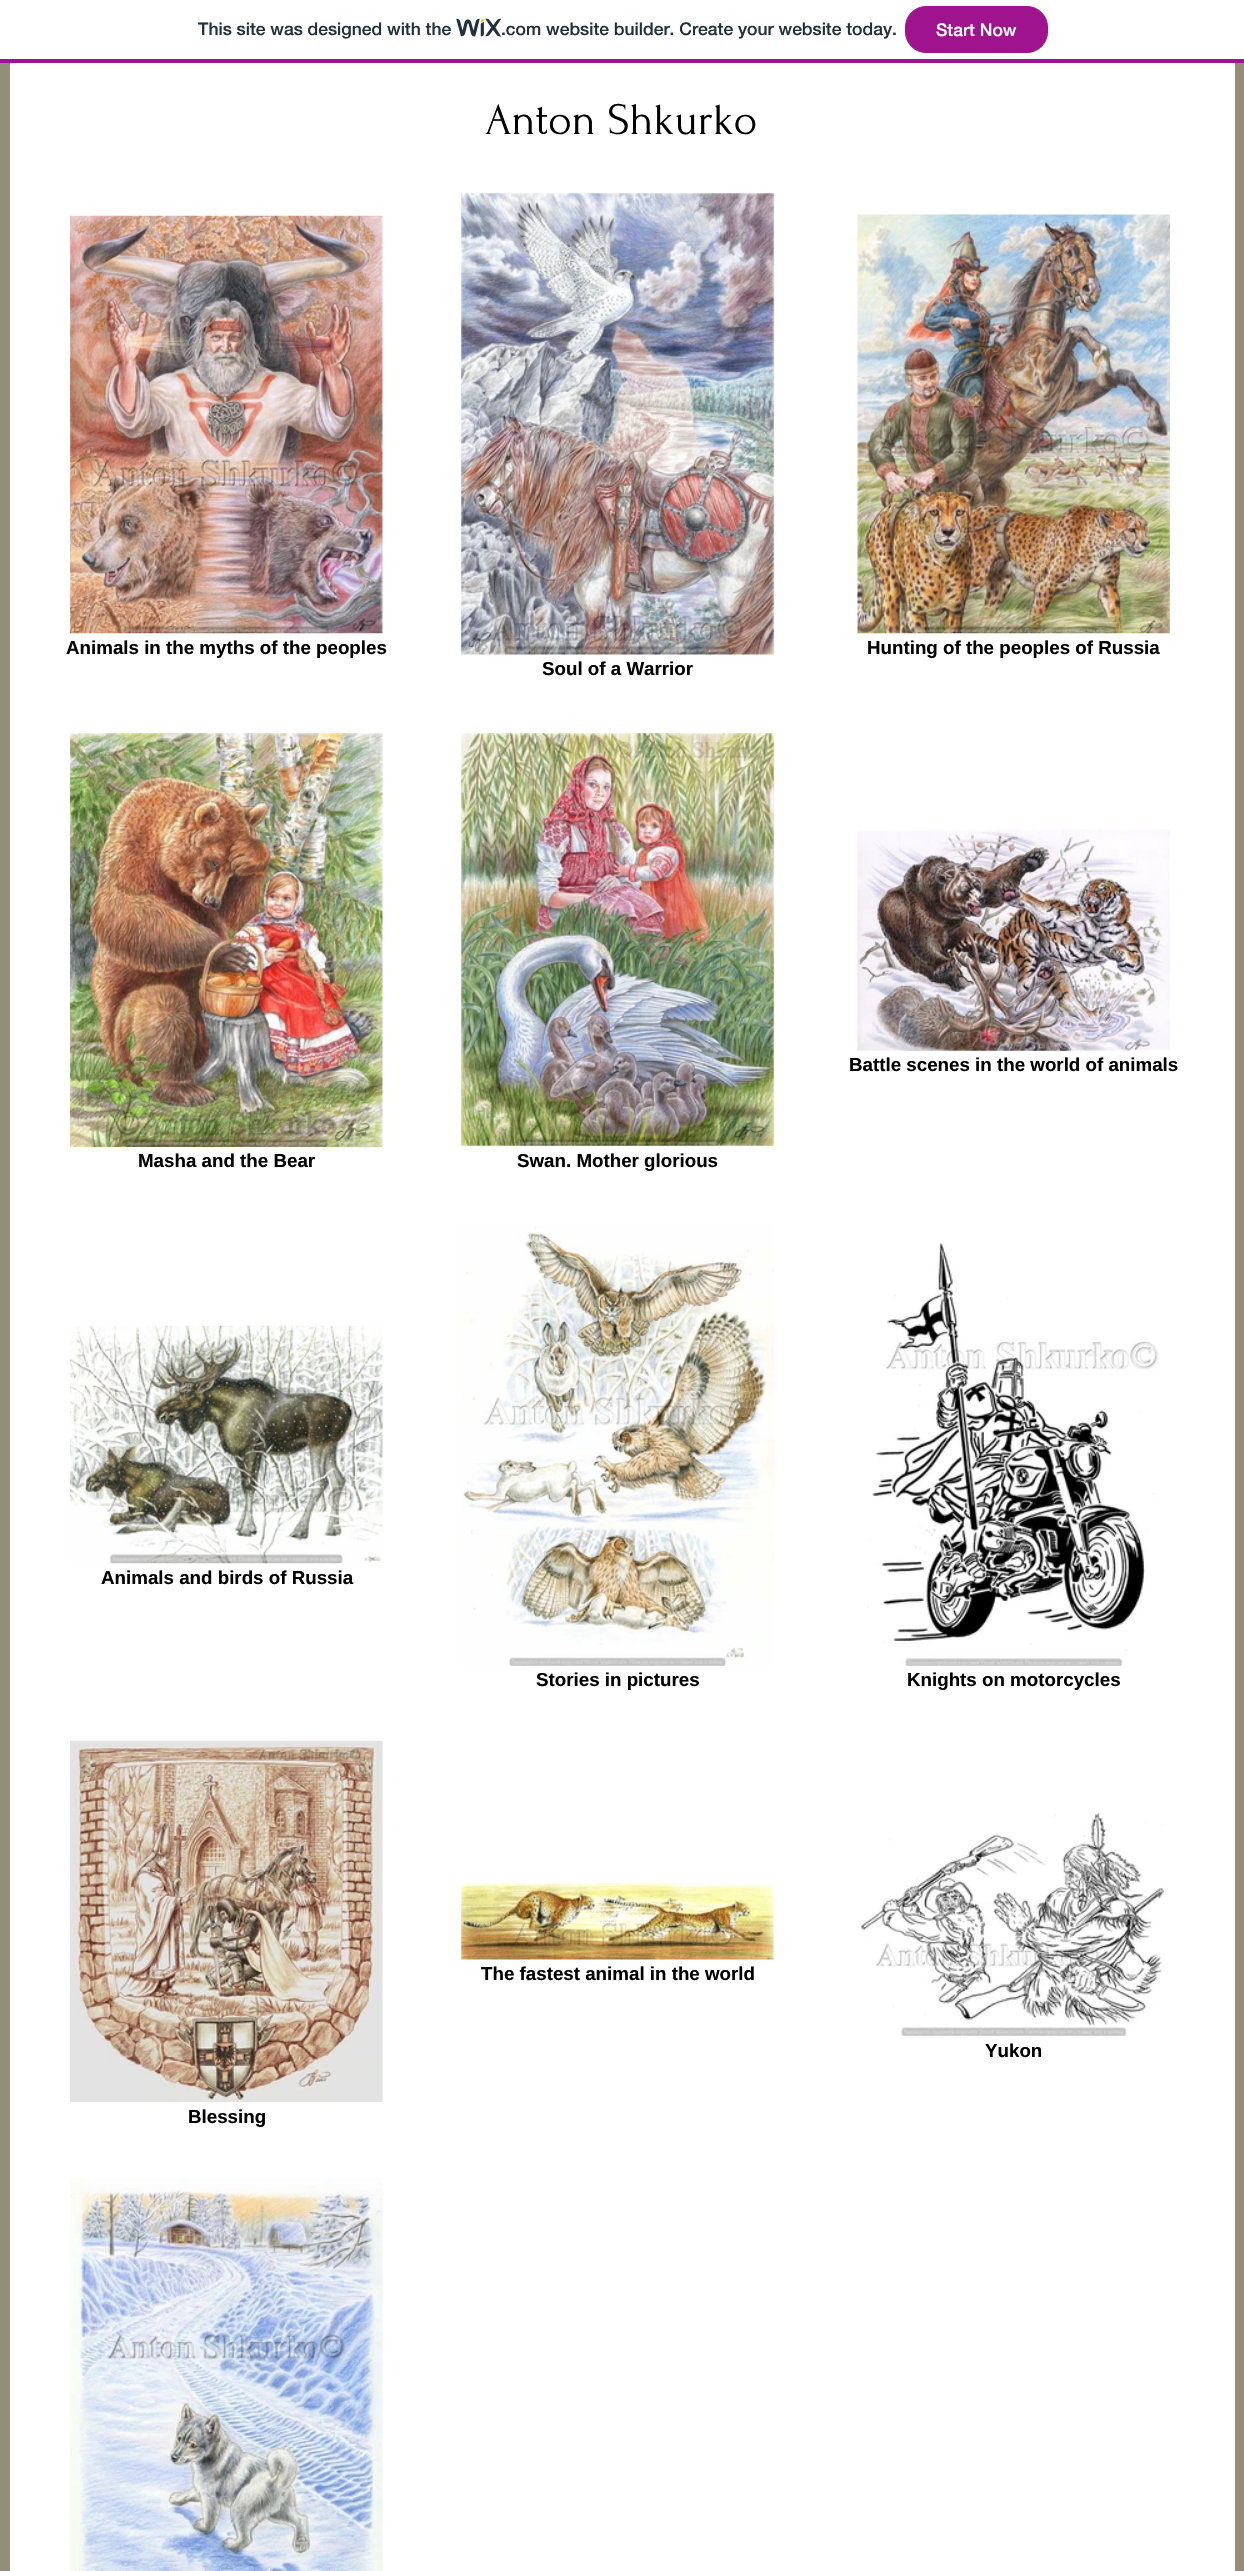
#include "include/core/SkBlurTypes.h"
#include "include/core/SkCanvas.h"
#include "include/core/SkData.h"
#include "include/core/SkFont.h"
#include "include/core/SkFontMgr.h"
#include "include/core/SkImage.h"
#include "include/core/SkMaskFilter.h"
#include "include/core/SkPaint.h"
#include "include/core/SkPathBuilder.h"
#include "include/core/SkTextBlob.h"
#include "include/effects/SkDashPathEffect.h"
#include "include/effects/SkGradientShader.h"
#include "include/utils/SkParsePath.h"

extern sk_sp<SkFontMgr> fontMgr;

void draw(SkCanvas* canvas) {
    SkPaint p;
    p.setAntiAlias(true);
    auto font = [&](const char* family, int weight, float size, bool italic = false) {
        SkFontStyle style(weight, SkFontStyle::kNormal_Width,
            italic ? SkFontStyle::kItalic_Slant : SkFontStyle::kUpright_Slant);
        SkFont result(fontMgr->matchFamilyStyle(family, style), size);
        result.setSubpixel(true);
        return result;
    };
    auto drawPhoto = [&](const char* path, float l, float t, float r, float b) {
        auto image = SkImages::DeferredFromEncodedData(SkData::MakeFromFileName(path));
        canvas->drawImageRect(image, SkRect::MakeLTRB(l, t, r, b), SkSamplingOptions());
    };
    canvas->clear(0xFF948D78);
    p.setColor(0xFFFFFFFF);
    canvas->drawRect(SkRect::MakeLTRB(0, 0, 1244, 59), p);
    p.setColor(0xFFA0138E);
    canvas->drawRect(SkRect::MakeLTRB(0, 59, 1244, 63), p);
    auto font1 = font("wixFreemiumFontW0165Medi", 500, 17.5f);
    p.setColor(0xFF20303C);
    canvas->drawString("This site was designed with the", 198, 35, font1, p);
    drawPhoto("media/1.png", 456, 18, 501, 37);
    canvas->drawString(".com website builder. Create your website today.", 501, 35, font1, p);
    p.setColor(0xFFA0138E);
    canvas->drawRoundRect(SkRect::MakeLTRB(905.5f, 6.5f, 1047.5f, 52.5f), 20.5f, 20.5f, p);
    p.setStyle(SkPaint::kStroke_Style);
    p.setStrokeWidth(1);
    canvas->drawRoundRect(SkRect::MakeLTRB(905.5f, 6.5f, 1047.5f, 52.5f), 20.5f, 20.5f, p);
    p.setStyle(SkPaint::kFill_Style);
    p.setColor(0xFFFFFFFF);
    canvas->drawString("Start Now", 936, 36, font1, p);
    canvas->drawRect(SkRect::MakeLTRB(10, 63, 1235, 2571), p);
    auto font2 = font("Forum", 400, 45);
    p.setColor(0xFF000000);
    canvas->drawString("Anton Shkurko", 485, 134, font2, p);
    drawPhoto("media/2.png", 70, 215, 383, 634);
    auto font3 = font("Liberation Sans", 700, 18.75f);
    canvas->drawString("Animals in the myths of the peoples", 66, 654, font3, p);
    drawPhoto("media/3.png", 857, 214, 1170, 634);
    canvas->drawString("Hunting of the peoples of Russia", 867, 654, font3, p);
    drawPhoto("media/4.png", 461, 193, 774, 655);
    canvas->drawString("Soul of a Warrior", 542, 675, font3, p);
    drawPhoto("media/5.png", 857, 829, 1170, 1051);
    canvas->drawString("Battle scenes in the world of animals", 849, 1071, font3, p);
    drawPhoto("media/6.png", 70, 733, 383, 1147);
    canvas->drawString("Masha and the Bear", 138, 1167, font3, p);
    drawPhoto("media/7.png", 461, 733, 774, 1146);
    canvas->drawString("Swan. Mother glorious", 517, 1167, font3, p);
    drawPhoto("media/8.png", 70, 1325, 383, 1564);
    canvas->drawString("Animals and birds of Russia", 101, 1584, font3, p);
    drawPhoto("media/9.png", 461, 1224, 774, 1666);
    canvas->drawString("Stories in pictures", 536, 1686, font3, p);
    drawPhoto("media/10.png", 867, 1243, 1159, 1666);
    canvas->drawString("Knights on motorcycles", 907, 1686, font3, p);
    drawPhoto("media/11.png", 461, 1883, 774, 1960);
    canvas->drawString("The fastest animal in the world", 481, 1980, font3, p);
    drawPhoto("media/12.png", 861, 1813, 1166, 2036);
    canvas->drawString("Yukon", 985, 2057, font3, p);
    drawPhoto("media/13.png", 70, 1740, 383, 2102);
    canvas->drawString("Blessing", 188, 2123, font3, p);
    drawPhoto("media/14.png", 70, 2178, 383, 2571);
}
